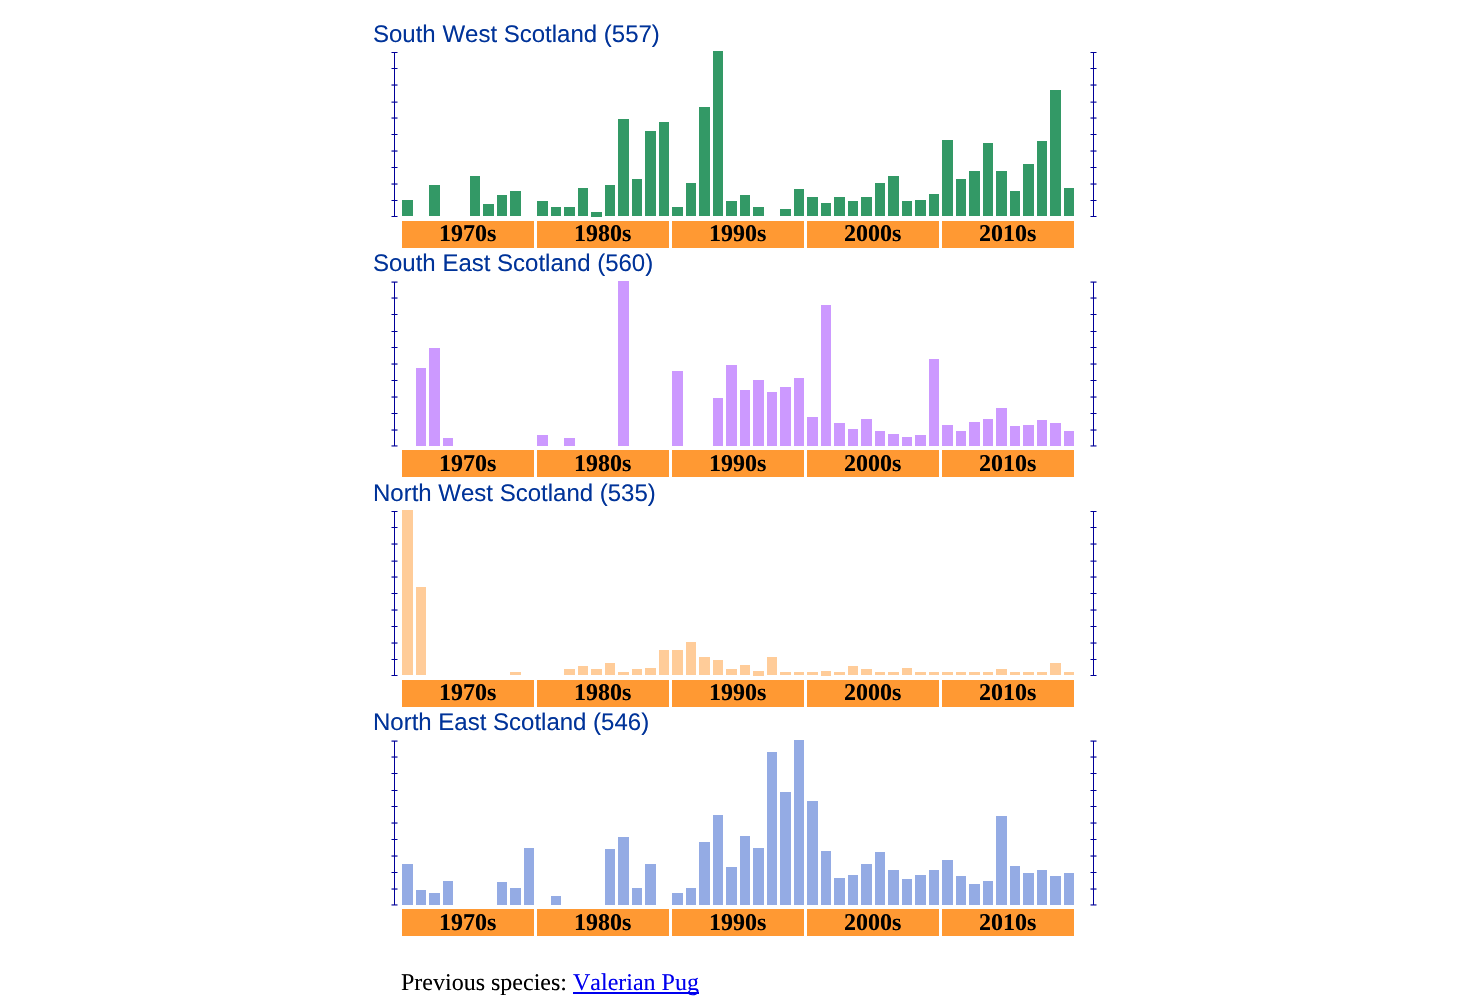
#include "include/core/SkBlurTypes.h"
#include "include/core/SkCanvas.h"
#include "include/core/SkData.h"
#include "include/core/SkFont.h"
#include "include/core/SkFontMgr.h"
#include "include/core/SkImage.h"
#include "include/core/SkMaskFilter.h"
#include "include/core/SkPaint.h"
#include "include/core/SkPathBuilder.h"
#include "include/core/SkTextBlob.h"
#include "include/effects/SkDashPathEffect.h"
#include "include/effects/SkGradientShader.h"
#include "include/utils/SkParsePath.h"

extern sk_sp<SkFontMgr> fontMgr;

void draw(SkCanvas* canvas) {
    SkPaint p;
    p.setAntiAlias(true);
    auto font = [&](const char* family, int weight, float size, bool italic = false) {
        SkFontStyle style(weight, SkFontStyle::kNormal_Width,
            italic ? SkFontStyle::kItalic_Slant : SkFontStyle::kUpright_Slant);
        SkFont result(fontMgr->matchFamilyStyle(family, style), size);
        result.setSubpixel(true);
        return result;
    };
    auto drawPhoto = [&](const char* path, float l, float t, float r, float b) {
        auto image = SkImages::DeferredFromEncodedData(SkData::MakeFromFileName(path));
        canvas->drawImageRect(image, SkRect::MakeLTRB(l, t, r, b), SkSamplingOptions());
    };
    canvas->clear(0xFFFFFFFF);
    auto font1 = font("Liberation Sans", 400, 24);
    p.setColor(0xFF003399);
    canvas->drawString("South West Scotland (557)", 373, 42, font1, p);
    drawPhoto("media/1.png", 391, 52, 398, 217);
    {
        const struct { float l, t, r, b; SkColor color; } items[] = {
            {402, 200, 413, 216, 0xFF339966},
            {429, 185, 440, 216, 0xFF339966},
            {470, 176, 480, 216, 0xFF339966},
            {483, 204, 494, 216, 0xFF339966},
            {497, 195, 507, 216, 0xFF339966},
            {510, 191, 521, 216, 0xFF339966},
            {537, 201, 548, 216, 0xFF339966},
            {551, 207, 561, 216, 0xFF339966},
            {564, 207, 575, 216, 0xFF339966},
            {578, 188, 588, 216, 0xFF339966},
            {591, 212, 602, 217, 0xFF339966},
            {605, 185, 615, 216, 0xFF339966},
            {618, 119, 629, 216, 0xFF339966},
            {632, 179, 642, 216, 0xFF339966},
            {645, 131, 656, 216, 0xFF339966},
            {659, 122, 669, 216, 0xFF339966},
            {672, 207, 683, 216, 0xFF339966},
            {686, 183, 696, 216, 0xFF339966},
            {699, 107, 710, 216, 0xFF339966},
            {713, 51, 723, 216, 0xFF339966},
            {726, 201, 737, 216, 0xFF339966},
            {740, 195, 750, 216, 0xFF339966},
            {753, 207, 764, 216, 0xFF339966},
            {780, 209, 791, 216, 0xFF339966},
            {794, 189, 804, 216, 0xFF339966},
            {807, 197, 818, 216, 0xFF339966},
            {821, 203, 831, 216, 0xFF339966},
            {834, 197, 845, 216, 0xFF339966},
            {848, 201, 858, 216, 0xFF339966},
            {861, 197, 872, 216, 0xFF339966},
            {875, 183, 885, 216, 0xFF339966},
            {888, 176, 899, 216, 0xFF339966},
            {902, 201, 912, 216, 0xFF339966},
            {915, 200, 926, 216, 0xFF339966},
            {929, 194, 939, 216, 0xFF339966},
            {942, 140, 953, 216, 0xFF339966},
            {956, 179, 966, 216, 0xFF339966},
            {969, 171, 980, 216, 0xFF339966},
            {983, 143, 993, 216, 0xFF339966},
            {996, 171, 1007, 216, 0xFF339966},
            {1010, 191, 1020, 216, 0xFF339966},
            {1023, 164, 1034, 216, 0xFF339966},
            {1037, 141, 1047, 216, 0xFF339966},
            {1050, 90, 1061, 216, 0xFF339966},
            {1064, 188, 1074, 216, 0xFF339966},
        };
        for (auto [l, t, r, b, color] : items) {
            p.setColor(color);
            canvas->drawRect(SkRect::MakeLTRB(l, t, r, b), p);
        }
    }
    drawPhoto("media/1.png", 1090, 52, 1097, 217);
    p.setColor(0xFFFF9933);
    canvas->drawRect(SkRect::MakeLTRB(402, 221, 534, 248), p);
    auto font2 = font("Liberation Serif", 700, 24);
    p.setColor(0xFF000000);
    canvas->drawString("1970s", 439, 241, font2, p);
    p.setColor(0xFFFF9933);
    canvas->drawRect(SkRect::MakeLTRB(537, 221, 669, 248), p);
    p.setColor(0xFF000000);
    canvas->drawString("1980s", 574, 241, font2, p);
    p.setColor(0xFFFF9933);
    canvas->drawRect(SkRect::MakeLTRB(672, 221, 804, 248), p);
    p.setColor(0xFF000000);
    canvas->drawString("1990s", 709, 241, font2, p);
    p.setColor(0xFFFF9933);
    canvas->drawRect(SkRect::MakeLTRB(807, 221, 939, 248), p);
    p.setColor(0xFF000000);
    canvas->drawString("2000s", 844, 241, font2, p);
    p.setColor(0xFFFF9933);
    canvas->drawRect(SkRect::MakeLTRB(942, 221, 1074, 248), p);
    p.setColor(0xFF000000);
    canvas->drawString("2010s", 979, 241, font2, p);
    p.setColor(0xFF003399);
    canvas->drawString("South East Scotland (560)", 373, 271, font1, p);
    drawPhoto("media/2.png", 391, 281, 398, 447);
    {
        const struct { float l, t, r, b; SkColor color; } items[] = {
            {416, 368, 426, 446, 0xFFCC99FF},
            {429, 348, 440, 446, 0xFFCC99FF},
            {443, 438, 453, 446, 0xFFCC99FF},
            {537, 435, 548, 446, 0xFFCC99FF},
            {564, 438, 575, 446, 0xFFCC99FF},
            {618, 281, 629, 446, 0xFFCC99FF},
            {672, 371, 683, 446, 0xFFCC99FF},
            {713, 398, 723, 446, 0xFFCC99FF},
            {726, 365, 737, 446, 0xFFCC99FF},
            {740, 390, 750, 446, 0xFFCC99FF},
            {753, 380, 764, 446, 0xFFCC99FF},
            {767, 392, 777, 446, 0xFFCC99FF},
            {780, 387, 791, 446, 0xFFCC99FF},
            {794, 378, 804, 446, 0xFFCC99FF},
            {807, 417, 818, 446, 0xFFCC99FF},
            {821, 305, 831, 446, 0xFFCC99FF},
            {834, 423, 845, 446, 0xFFCC99FF},
            {848, 429, 858, 446, 0xFFCC99FF},
            {861, 419, 872, 446, 0xFFCC99FF},
            {875, 431, 885, 446, 0xFFCC99FF},
            {888, 434, 899, 446, 0xFFCC99FF},
            {902, 437, 912, 446, 0xFFCC99FF},
            {915, 435, 926, 446, 0xFFCC99FF},
            {929, 359, 939, 446, 0xFFCC99FF},
            {942, 425, 953, 446, 0xFFCC99FF},
            {956, 431, 966, 446, 0xFFCC99FF},
            {969, 422, 980, 446, 0xFFCC99FF},
            {983, 419, 993, 446, 0xFFCC99FF},
            {996, 408, 1007, 446, 0xFFCC99FF},
            {1010, 426, 1020, 446, 0xFFCC99FF},
            {1023, 425, 1034, 446, 0xFFCC99FF},
            {1037, 420, 1047, 446, 0xFFCC99FF},
            {1050, 423, 1061, 446, 0xFFCC99FF},
            {1064, 431, 1074, 446, 0xFFCC99FF},
        };
        for (auto [l, t, r, b, color] : items) {
            p.setColor(color);
            canvas->drawRect(SkRect::MakeLTRB(l, t, r, b), p);
        }
    }
    drawPhoto("media/2.png", 1090, 281, 1097, 447);
    p.setColor(0xFFFF9933);
    canvas->drawRect(SkRect::MakeLTRB(402, 450, 534, 477), p);
    p.setColor(0xFF000000);
    canvas->drawString("1970s", 439, 471, font2, p);
    p.setColor(0xFFFF9933);
    canvas->drawRect(SkRect::MakeLTRB(537, 450, 669, 477), p);
    p.setColor(0xFF000000);
    canvas->drawString("1980s", 574, 471, font2, p);
    p.setColor(0xFFFF9933);
    canvas->drawRect(SkRect::MakeLTRB(672, 450, 804, 477), p);
    p.setColor(0xFF000000);
    canvas->drawString("1990s", 709, 471, font2, p);
    p.setColor(0xFFFF9933);
    canvas->drawRect(SkRect::MakeLTRB(807, 450, 939, 477), p);
    p.setColor(0xFF000000);
    canvas->drawString("2000s", 844, 471, font2, p);
    p.setColor(0xFFFF9933);
    canvas->drawRect(SkRect::MakeLTRB(942, 450, 1074, 477), p);
    p.setColor(0xFF000000);
    canvas->drawString("2010s", 979, 471, font2, p);
    p.setColor(0xFF003399);
    canvas->drawString("North West Scotland (535)", 373, 501, font1, p);
    drawPhoto("media/1.png", 391, 511, 398, 676);
    {
        const struct { float l, t, r, b; SkColor color; } items[] = {
            {402, 510, 413, 675, 0xFFFFCC99},
            {416, 587, 426, 675, 0xFFFFCC99},
            {510, 672, 521, 675, 0xFFFFCC99},
            {564, 669, 575, 675, 0xFFFFCC99},
            {578, 666, 588, 675, 0xFFFFCC99},
            {591, 669, 602, 675, 0xFFFFCC99},
            {605, 663, 615, 675, 0xFFFFCC99},
            {618, 672, 629, 675, 0xFFFFCC99},
            {632, 669, 642, 675, 0xFFFFCC99},
            {645, 668, 656, 675, 0xFFFFCC99},
            {659, 650, 669, 675, 0xFFFFCC99},
            {672, 650, 683, 675, 0xFFFFCC99},
            {686, 642, 696, 675, 0xFFFFCC99},
            {699, 657, 710, 675, 0xFFFFCC99},
            {713, 660, 723, 675, 0xFFFFCC99},
            {726, 669, 737, 675, 0xFFFFCC99},
            {740, 665, 750, 675, 0xFFFFCC99},
            {753, 671, 764, 676, 0xFFFFCC99},
            {767, 657, 777, 675, 0xFFFFCC99},
            {780, 672, 791, 675, 0xFFFFCC99},
            {794, 672, 804, 675, 0xFFFFCC99},
            {807, 672, 818, 675, 0xFFFFCC99},
            {821, 671, 831, 676, 0xFFFFCC99},
            {834, 672, 845, 675, 0xFFFFCC99},
            {848, 666, 858, 675, 0xFFFFCC99},
            {861, 669, 872, 675, 0xFFFFCC99},
            {875, 672, 885, 675, 0xFFFFCC99},
            {888, 672, 899, 675, 0xFFFFCC99},
            {902, 668, 912, 675, 0xFFFFCC99},
            {915, 672, 926, 675, 0xFFFFCC99},
            {929, 672, 939, 675, 0xFFFFCC99},
            {942, 672, 953, 675, 0xFFFFCC99},
            {956, 672, 966, 675, 0xFFFFCC99},
            {969, 672, 980, 675, 0xFFFFCC99},
            {983, 672, 993, 675, 0xFFFFCC99},
            {996, 669, 1007, 675, 0xFFFFCC99},
            {1010, 672, 1020, 675, 0xFFFFCC99},
            {1023, 672, 1034, 675, 0xFFFFCC99},
            {1037, 672, 1047, 675, 0xFFFFCC99},
            {1050, 663, 1061, 675, 0xFFFFCC99},
            {1064, 672, 1074, 675, 0xFFFFCC99},
        };
        for (auto [l, t, r, b, color] : items) {
            p.setColor(color);
            canvas->drawRect(SkRect::MakeLTRB(l, t, r, b), p);
        }
    }
    drawPhoto("media/1.png", 1090, 511, 1097, 676);
    p.setColor(0xFFFF9933);
    canvas->drawRect(SkRect::MakeLTRB(402, 680, 534, 707), p);
    p.setColor(0xFF000000);
    canvas->drawString("1970s", 439, 700, font2, p);
    p.setColor(0xFFFF9933);
    canvas->drawRect(SkRect::MakeLTRB(537, 680, 669, 707), p);
    p.setColor(0xFF000000);
    canvas->drawString("1980s", 574, 700, font2, p);
    p.setColor(0xFFFF9933);
    canvas->drawRect(SkRect::MakeLTRB(672, 680, 804, 707), p);
    p.setColor(0xFF000000);
    canvas->drawString("1990s", 709, 700, font2, p);
    p.setColor(0xFFFF9933);
    canvas->drawRect(SkRect::MakeLTRB(807, 680, 939, 707), p);
    p.setColor(0xFF000000);
    canvas->drawString("2000s", 844, 700, font2, p);
    p.setColor(0xFFFF9933);
    canvas->drawRect(SkRect::MakeLTRB(942, 680, 1074, 707), p);
    p.setColor(0xFF000000);
    canvas->drawString("2010s", 979, 700, font2, p);
    p.setColor(0xFF003399);
    canvas->drawString("North East Scotland (546)", 373, 730, font1, p);
    drawPhoto("media/2.png", 391, 740, 398, 906);
    {
        const struct { float l, t, r, b; SkColor color; } items[] = {
            {402, 864, 413, 905, 0xFF94ABE4},
            {416, 890, 426, 905, 0xFF94ABE4},
            {429, 893, 440, 905, 0xFF94ABE4},
            {443, 881, 453, 905, 0xFF94ABE4},
            {497, 882, 507, 905, 0xFF94ABE4},
            {510, 888, 521, 905, 0xFF94ABE4},
            {524, 848, 534, 905, 0xFF94ABE4},
            {551, 896, 561, 905, 0xFF94ABE4},
            {605, 849, 615, 905, 0xFF94ABE4},
            {618, 837, 629, 905, 0xFF94ABE4},
            {632, 888, 642, 905, 0xFF94ABE4},
            {645, 864, 656, 905, 0xFF94ABE4},
            {672, 893, 683, 905, 0xFF94ABE4},
            {686, 888, 696, 905, 0xFF94ABE4},
            {699, 842, 710, 905, 0xFF94ABE4},
            {713, 815, 723, 905, 0xFF94ABE4},
            {726, 867, 737, 905, 0xFF94ABE4},
            {740, 836, 750, 905, 0xFF94ABE4},
            {753, 848, 764, 905, 0xFF94ABE4},
            {767, 752, 777, 905, 0xFF94ABE4},
            {780, 792, 791, 905, 0xFF94ABE4},
            {794, 740, 804, 905, 0xFF94ABE4},
            {807, 801, 818, 905, 0xFF94ABE4},
            {821, 851, 831, 905, 0xFF94ABE4},
            {834, 878, 845, 905, 0xFF94ABE4},
            {848, 875, 858, 905, 0xFF94ABE4},
            {861, 864, 872, 905, 0xFF94ABE4},
            {875, 852, 885, 905, 0xFF94ABE4},
            {888, 870, 899, 905, 0xFF94ABE4},
            {902, 879, 912, 905, 0xFF94ABE4},
            {915, 875, 926, 905, 0xFF94ABE4},
            {929, 870, 939, 905, 0xFF94ABE4},
            {942, 860, 953, 905, 0xFF94ABE4},
            {956, 876, 966, 905, 0xFF94ABE4},
            {969, 884, 980, 905, 0xFF94ABE4},
            {983, 881, 993, 905, 0xFF94ABE4},
            {996, 816, 1007, 905, 0xFF94ABE4},
            {1010, 866, 1020, 905, 0xFF94ABE4},
            {1023, 873, 1034, 905, 0xFF94ABE4},
            {1037, 870, 1047, 905, 0xFF94ABE4},
            {1050, 876, 1061, 905, 0xFF94ABE4},
            {1064, 873, 1074, 905, 0xFF94ABE4},
        };
        for (auto [l, t, r, b, color] : items) {
            p.setColor(color);
            canvas->drawRect(SkRect::MakeLTRB(l, t, r, b), p);
        }
    }
    drawPhoto("media/2.png", 1090, 740, 1097, 906);
    p.setColor(0xFFFF9933);
    canvas->drawRect(SkRect::MakeLTRB(402, 909, 534, 936), p);
    p.setColor(0xFF000000);
    canvas->drawString("1970s", 439, 930, font2, p);
    p.setColor(0xFFFF9933);
    canvas->drawRect(SkRect::MakeLTRB(537, 909, 669, 936), p);
    p.setColor(0xFF000000);
    canvas->drawString("1980s", 574, 930, font2, p);
    p.setColor(0xFFFF9933);
    canvas->drawRect(SkRect::MakeLTRB(672, 909, 804, 936), p);
    p.setColor(0xFF000000);
    canvas->drawString("1990s", 709, 930, font2, p);
    p.setColor(0xFFFF9933);
    canvas->drawRect(SkRect::MakeLTRB(807, 909, 939, 936), p);
    p.setColor(0xFF000000);
    canvas->drawString("2000s", 844, 930, font2, p);
    p.setColor(0xFFFF9933);
    canvas->drawRect(SkRect::MakeLTRB(942, 909, 1074, 936), p);
    p.setColor(0xFF000000);
    canvas->drawString("2010s", 979, 930, font2, p);
    auto font3 = font("Liberation Serif", 400, 24);
    canvas->drawString("Previous species:", 401, 990, font3, p);
    p.setColor(0xFF0000EE);
    canvas->drawRect(SkRect::MakeLTRB(573, 992, 699, 994), p);
    canvas->drawString("Valerian Pug", 573, 990, font3, p);
}
